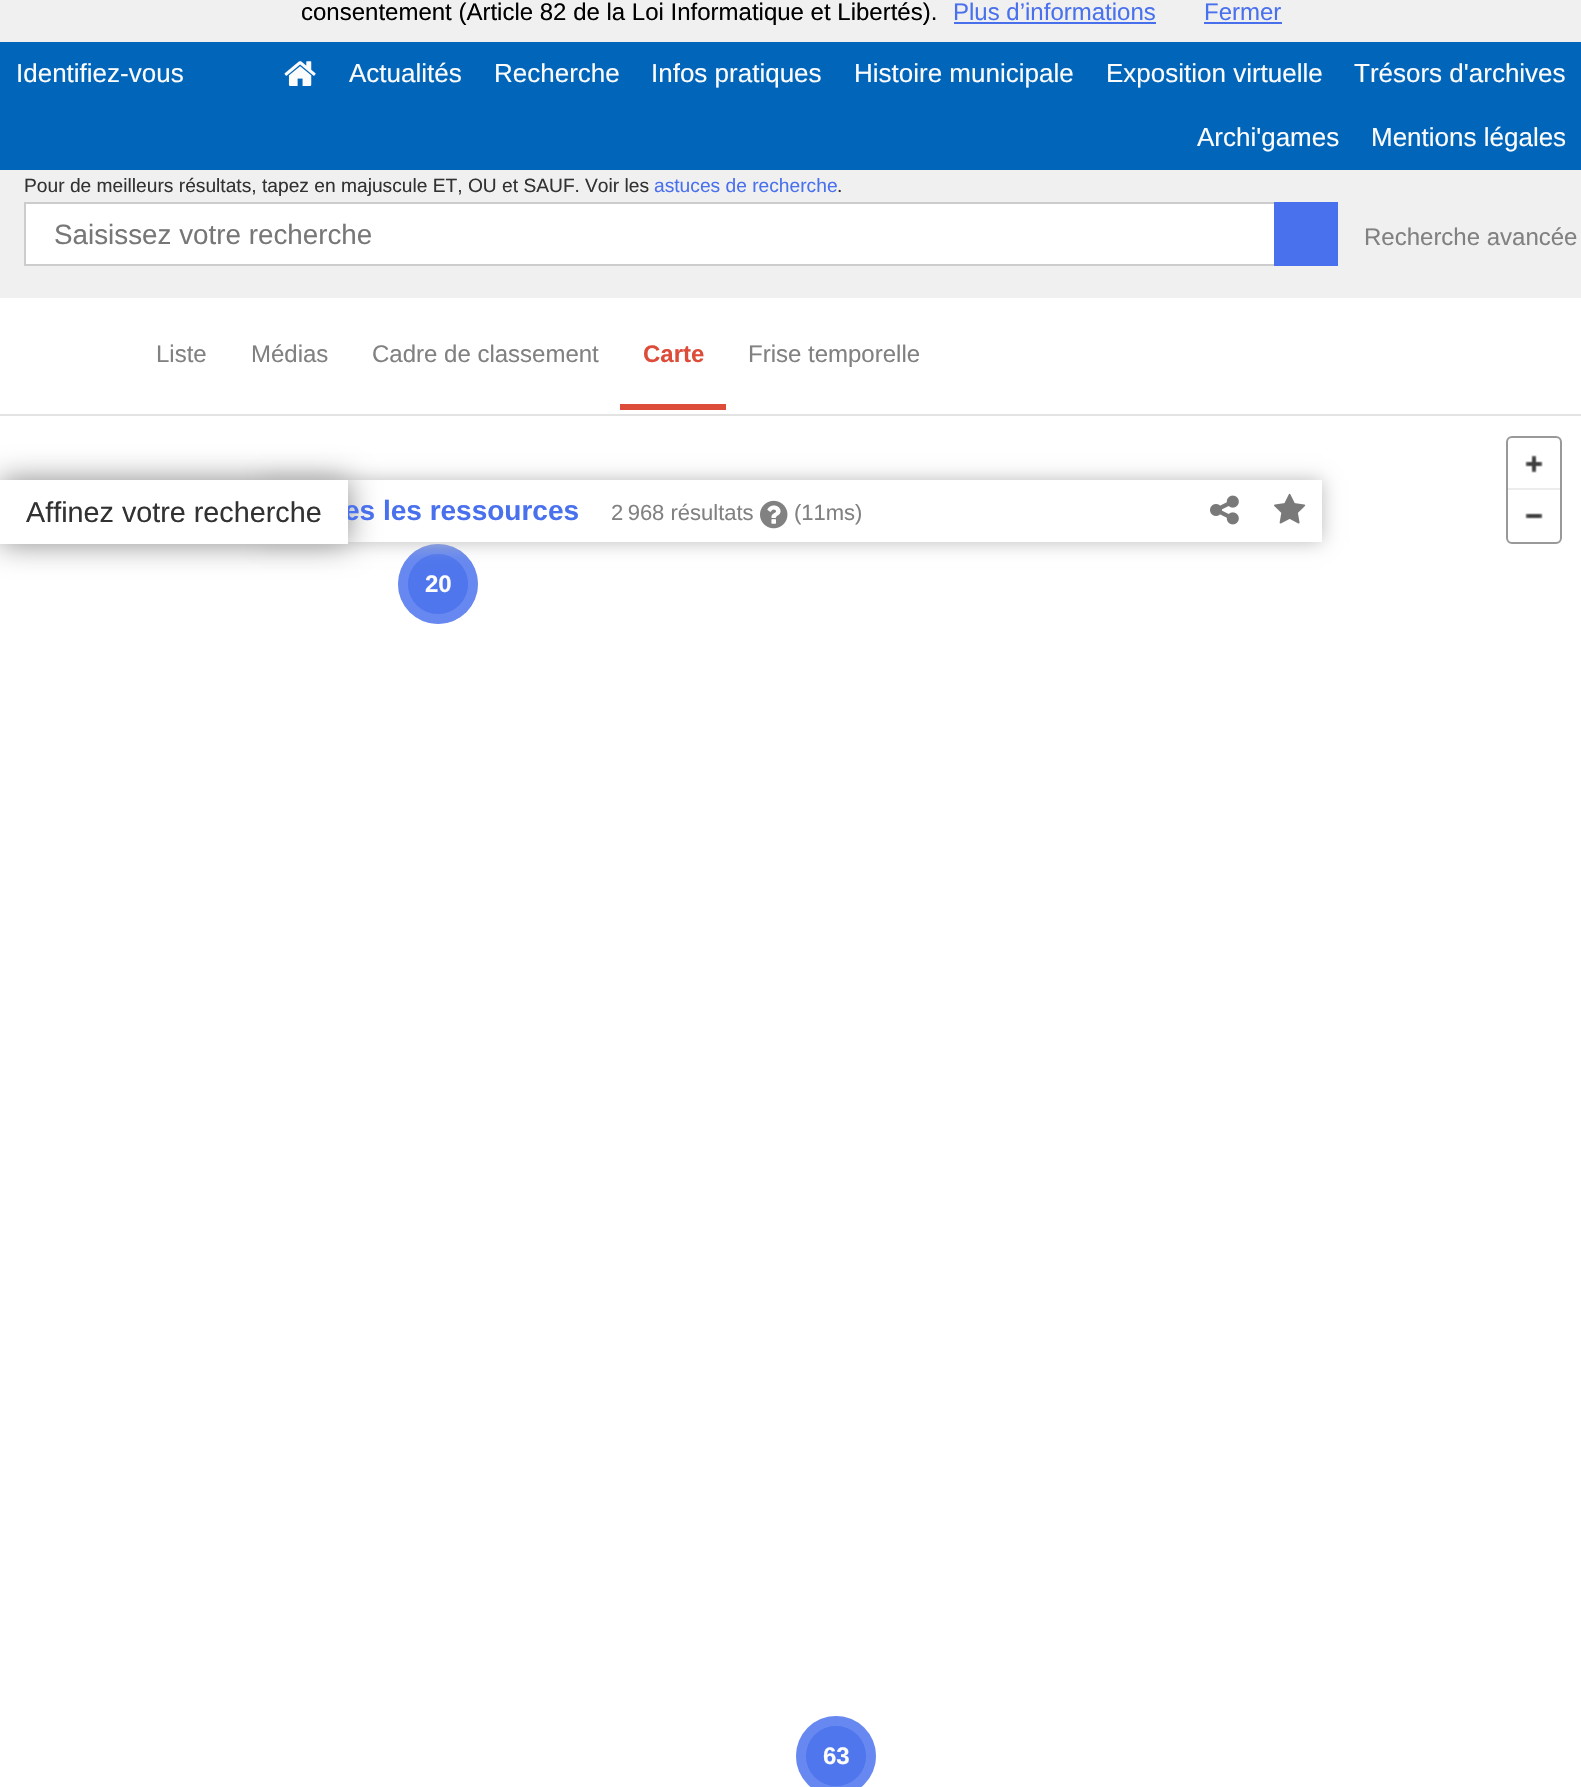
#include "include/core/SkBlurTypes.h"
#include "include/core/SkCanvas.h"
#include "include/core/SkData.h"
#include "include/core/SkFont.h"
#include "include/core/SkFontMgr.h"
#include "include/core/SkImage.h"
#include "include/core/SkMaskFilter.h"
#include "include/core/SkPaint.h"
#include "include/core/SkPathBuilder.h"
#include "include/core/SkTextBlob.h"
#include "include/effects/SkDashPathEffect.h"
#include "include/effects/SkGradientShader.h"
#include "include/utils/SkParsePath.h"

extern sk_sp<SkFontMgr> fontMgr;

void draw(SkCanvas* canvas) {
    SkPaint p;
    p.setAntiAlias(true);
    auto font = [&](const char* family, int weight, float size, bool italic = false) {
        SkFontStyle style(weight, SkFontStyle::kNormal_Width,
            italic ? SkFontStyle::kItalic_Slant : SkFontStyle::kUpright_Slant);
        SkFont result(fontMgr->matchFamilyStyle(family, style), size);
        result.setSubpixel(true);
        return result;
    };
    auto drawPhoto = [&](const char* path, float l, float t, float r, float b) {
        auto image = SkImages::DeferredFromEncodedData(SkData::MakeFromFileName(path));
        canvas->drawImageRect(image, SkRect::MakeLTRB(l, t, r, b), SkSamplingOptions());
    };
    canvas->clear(0xFFF0F0F0);
    auto font1 = font("Liberation Sans", 400, 24);
    p.setColor(0xFF000000);
    canvas->drawString("consentement (Article 82 de la Loi Informatique et Libertés).", 301, 20, font1, p);
    p.setColor(0xFF4A71ED);
    canvas->drawString("Plus d’informations", 953, 20, font1, p);
    p.setColor(0xFF4970EC);
    canvas->drawRect(SkRect::MakeLTRB(954, 22, 1156, 24), p);
    p.setColor(0xFF4A71ED);
    canvas->drawString("Fermer", 1204, 20, font1, p);
    p.setColor(0xFF4970EC);
    canvas->drawRect(SkRect::MakeLTRB(1204, 22, 1282, 24), p);
    p.setColor(0xFF0165BA);
    canvas->drawRect(SkRect::MakeLTRB(0, 42, 1581, 170), p);
    auto font2 = font("Liberation Sans", 400, 26);
    p.setColor(0xFFFCFCFC);
    canvas->drawString("Identifiez-vous", 16, 82, font2, p);
    drawPhoto("media/1.png", 284, 61, 316, 86);
    {
        const struct { const char* s; float x, y; } items[] = {
            {"Actualités", 349, 82},
            {"Recherche", 494, 82},
            {"Infos pratiques", 651, 82},
            {"Histoire municipale", 854, 82},
            {"Exposition virtuelle", 1106, 82},
            {"Trésors d'archives", 1354, 82},
            {"Archi'games", 1197, 146},
            {"Mentions légales", 1371, 146},
        };
        for (auto [s, x, y] : items) {
            canvas->drawString(s, x, y, font2, p);
        }
    }
    auto font3 = font("Liberation Sans", 400, 19.2f);
    p.setColor(0xFF323232);
    canvas->drawString("Pour de meilleurs résultats, tapez en majuscule ET, OU et SAUF.", 24, 192, font3, p);
    canvas->drawString("Voir les", 585, 192, font3, p);
    p.setColor(0xFF4A71ED);
    canvas->drawString("astuces de recherche", 654, 192, font3, p);
    p.setColor(0xFF323232);
    canvas->drawString(".", 837, 192, font3, p);
    p.setColor(0xFFFFFFFF);
    canvas->drawRect(SkRect::MakeLTRB(26, 204, 1274, 264), p);
    p.setStyle(SkPaint::kStroke_Style);
    p.setStrokeWidth(2);
    p.setColor(0xFFCCCCCC);
    canvas->drawRect(SkRect::MakeLTRB(25, 203, 1337, 265), p);
    auto font4 = font("Liberation Sans", 400, 27.8f);
    p.setStyle(SkPaint::kFill_Style);
    p.setColor(0xFF777777);
    canvas->drawString("Saisissez votre recherche", 54, 244, font4, p);
    p.setColor(0xFF4A71ED);
    canvas->drawRect(SkRect::MakeLTRB(1274, 202, 1338, 266), p);
    p.setColor(0xFF818181);
    canvas->drawString("Recherche avancée", 1364, 245, font1, p);
    p.setColor(0xFFFFFFFF);
    canvas->drawRect(SkRect::MakeLTRB(0, 298, 1581, 414), p);
    p.setColor(0xFFE3E3E3);
    canvas->drawRect(SkRect::MakeLTRB(0, 414, 1581, 416), p);
    p.setColor(0xFF818181);
    {
        const struct { const char* s; float x, y; } items[] = {
            {"Liste", 156, 362},
            {"Médias", 251, 362},
            {"Cadre de classement", 372, 362},
        };
        for (auto [s, x, y] : items) {
            canvas->drawString(s, x, y, font1, p);
        }
    }
    p.setColor(0xFFDD4B39);
    canvas->drawRect(SkRect::MakeLTRB(620, 404, 726, 410), p);
    auto font5 = font("Liberation Sans", 700, 24);
    canvas->drawString("Carte", 643, 362, font5, p);
    p.setColor(0xFF818181);
    canvas->drawString("Frise temporelle", 748, 362, font1, p);
    p.setColor(0xFFFFFFFF);
    canvas->drawRect(SkRect::MakeLTRB(0, 416, 1581, 1787), p);
    p.setColor(0xFF888888);
    p.setMaskFilter(SkMaskFilter::MakeBlur(kNormal_SkBlurStyle, 15));
    canvas->drawRect(SkRect::MakeLTRB(0, 480, 348, 544), p);
    p.setMaskFilter(nullptr);
    p.setColor(0xFF92AAF4);
    canvas->drawCircle(438, 584, 40, p);
    p.setColor(0xFF6788F0);
    canvas->drawCircle(438, 584, 30, p);
    p.setColor(0x994A71ED);
    canvas->drawCircle(438, 584, 40, p);
    canvas->drawCircle(438, 584, 30, p);
    canvas->save();
    canvas->clipPath(SkPathBuilder(SkPathFillType::kEvenOdd).moveTo(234, 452).lineTo(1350, 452).lineTo(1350, 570).lineTo(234, 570).close().moveTo(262, 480).lineTo(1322, 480).lineTo(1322, 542).lineTo(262, 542).close().detach(), true);
    p.setColor(0xFFBBBBBB);
    p.setMaskFilter(SkMaskFilter::MakeBlur(kNormal_SkBlurStyle, 9));
    canvas->drawRect(SkRect::MakeLTRB(262, 480, 1322, 542), p);
    p.setMaskFilter(nullptr);
    canvas->restore();
    auto font6 = font("Liberation Sans", 700, 28);
    p.setColor(0xFF4A71ED);
    canvas->drawString("es les ressources", 344, 520, font6, p);
    p.setColor(0xFFFFFFFF);
    canvas->drawRect(SkRect::MakeLTRB(0, 480, 348, 544), p);
    auto font7 = font("Liberation Sans", 400, 28.75f);
    p.setColor(0xFF323232);
    canvas->drawString("Affinez votre recherche", 26, 522, font7, p);
    auto font8 = font("Liberation Sans", 400, 22);
    p.setColor(0xFF818181);
    canvas->drawString("2 968 résultats", 611, 520, font8, p);
    drawPhoto("media/2.png", 760, 500, 788, 529);
    canvas->drawString("(11ms)", 794, 520, font8, p);
    drawPhoto("media/3.png", 1210, 495, 1239, 525);
    drawPhoto("media/4.png", 1274, 493, 1306, 524);
    p.setStyle(SkPaint::kStroke_Style);
    p.setColor(0xFF999999);
    canvas->drawRoundRect(SkRect::MakeLTRB(1507, 437, 1561, 543), 5, 5, p);
    drawPhoto("media/5.png", 1525, 455, 1543, 473);
    p.setStyle(SkPaint::kFill_Style);
    p.setColor(0xFFECECEC);
    canvas->drawRect(SkRect::MakeLTRB(1508, 488, 1560, 490), p);
    drawPhoto("media/6.png", 1525, 513, 1543, 519);
    p.setColor(0xFFFCFCFC);
    canvas->drawString("20", 425, 592, font5, p);
    p.setColor(0xFF92AAF4);
    canvas->drawCircle(836, 1756, 40, p);
    p.setColor(0xFF6788F0);
    canvas->drawCircle(836, 1756, 30, p);
    p.setColor(0x994A71ED);
    canvas->drawCircle(836, 1756, 40, p);
    canvas->drawCircle(836, 1756, 30, p);
    p.setColor(0xFFFCFCFC);
    canvas->drawString("63", 823, 1764, font5, p);
}
